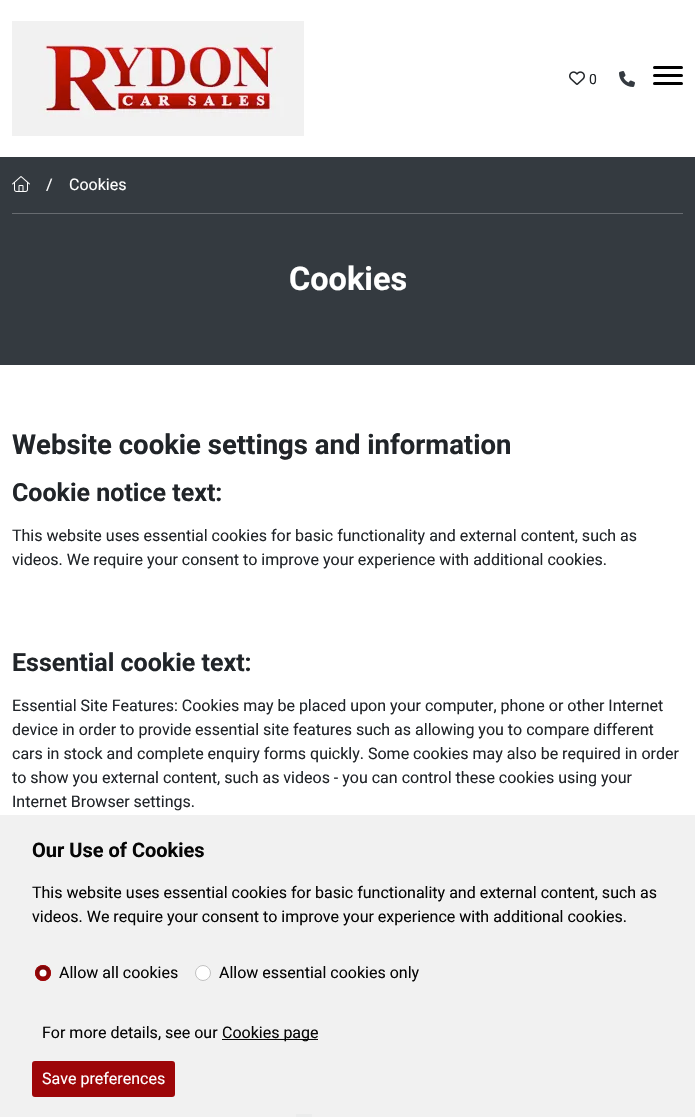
#include "include/core/SkBlurTypes.h"
#include "include/core/SkCanvas.h"
#include "include/core/SkData.h"
#include "include/core/SkFont.h"
#include "include/core/SkFontMgr.h"
#include "include/core/SkImage.h"
#include "include/core/SkMaskFilter.h"
#include "include/core/SkPaint.h"
#include "include/core/SkPathBuilder.h"
#include "include/core/SkTextBlob.h"
#include "include/effects/SkDashPathEffect.h"
#include "include/effects/SkGradientShader.h"
#include "include/utils/SkParsePath.h"

extern sk_sp<SkFontMgr> fontMgr;

void draw(SkCanvas* canvas) {
    SkPaint p;
    p.setAntiAlias(true);
    auto font = [&](const char* family, int weight, float size, bool italic = false) {
        SkFontStyle style(weight, SkFontStyle::kNormal_Width,
            italic ? SkFontStyle::kItalic_Slant : SkFontStyle::kUpright_Slant);
        SkFont result(fontMgr->matchFamilyStyle(family, style), size);
        result.setSubpixel(true);
        return result;
    };
    auto drawPhoto = [&](const char* path, float l, float t, float r, float b) {
        auto image = SkImages::DeferredFromEncodedData(SkData::MakeFromFileName(path));
        canvas->drawImageRect(image, SkRect::MakeLTRB(l, t, r, b), SkSamplingOptions());
    };
    canvas->clear(0xFFFFFFFF);
    p.setColor(0xFFF1F1F1);
    canvas->drawRect(SkRect::MakeLTRB(0, 815, 695, 1117), p);
    drawPhoto("media/1.png", 12, 21, 304, 136);
    drawPhoto("media/2.png", 569, 71, 585, 85);
    auto font1 = font("Roboto", 400, 14);
    p.setColor(0xFF212529);
    canvas->drawString("0", 589, 84, font1, p);
    drawPhoto("media/3.png", 619, 71, 635, 87);
    p.setColor(0xFF000000);
    canvas->drawRoundRect(SkRect::MakeLTRB(653, 74, 683, 77), 1.5f, 1.5f, p);
    canvas->drawRoundRect(SkRect::MakeLTRB(653, 66, 683, 69), 1.5f, 1.5f, p);
    canvas->drawRoundRect(SkRect::MakeLTRB(653, 82, 683, 85), 1.5f, 1.5f, p);
    p.setColor(0xFF343A40);
    canvas->drawRect(SkRect::MakeLTRB(0, 157, 695, 365), p);
    drawPhoto("media/4.png", 12, 176, 30, 192);
    auto font2 = font("Roboto", 400, 16);
    p.setColor(0xFFFFFFFF);
    canvas->drawString("/", 46, 190, font2, p);
    canvas->drawString("Cookies", 69, 190, font2, p);
    p.setColor(0xFF676B70);
    canvas->drawRect(SkRect::MakeLTRB(12, 213, 683, 214), p);
    auto font3 = font("Roboto", 700, 32.5f);
    p.setColor(0xFFFFFFFF);
    canvas->drawString("Cookies", 289, 290, font3, p);
    auto font4 = font("Roboto", 700, 27.5f);
    p.setColor(0xFF212529);
    canvas->drawString("Website cookie settings and information", 12, 454, font4, p);
    auto font5 = font("Roboto", 700, 25);
    canvas->drawString("Cookie notice text:", 12, 501, font5, p);
    canvas->drawString("This website uses essential cookies for basic functionality and external content, such as", 12, 541, font2, p);
    canvas->drawString("videos. We require your consent to improve your experience with additional cookies.", 12, 565, font2, p);
    canvas->drawString("Essential cookie text:", 12, 671, font5, p);
    {
        const struct { const char* s; float x, y; } items[] = {
            {"Essential Site Features: Cookies may be placed upon your computer, phone or other Internet", 12, 711},
            {"device in order to provide essential site features such as allowing you to compare different", 12, 735},
            {"cars in stock and complete enquiry forms quickly. Some cookies may also be required in order", 12, 759},
            {"to show you external content, such as videos - you can control these cookies using your", 12, 783},
            {"Internet Browser settings.", 12, 807},
        };
        for (auto [s, x, y] : items) {
            canvas->drawString(s, x, y, font2, p);
        }
    }
    auto font6 = font("Roboto", 700, 20);
    p.setColor(0xFF060606);
    canvas->drawString("Our Use of Cookies", 32, 857, font6, p);
    canvas->drawString("This website uses essential cookies for basic functionality and external content, such as", 32, 898, font2, p);
    canvas->drawString("videos. We require your consent to improve your experience with additional cookies.", 32, 922, font2, p);
    p.setColor(0xFF9E0608);
    canvas->drawCircle(43, 973, 8, p);
    canvas->save();
    canvas->clipPath(SkPathBuilder().moveTo(43, 965).cubicTo(47.5f, 965, 51, 968.5f, 51, 973).cubicTo(51, 977.5f, 47.5f, 981, 43, 981).cubicTo(38.5f, 981, 35, 977.5f, 35, 973).cubicTo(35, 968.5f, 38.5f, 965, 43, 965).close().detach(), true);
    {
        const SkColor colors[] = {0x00060606, 0x33060606};
        const float stops[] = {0, 0.77f};
        const SkPoint ends[] = {{43, 980}, {43, 966}};
        p.setShader(SkGradientShader::MakeLinear(ends, colors, stops, 2, SkTileMode::kClamp));
        p.setAlpha(255);
    }
    canvas->drawRect(SkRect::MakeLTRB(36, 966, 50, 979), p);
    canvas->restore();
    p.setShader(nullptr);
    p.setColor(0xFFFFFFFF);
    canvas->drawCircle(43, 973, 3.5f, p);
    p.setStyle(SkPaint::kStroke_Style);
    p.setStrokeWidth(1);
    p.setColor(0xFF9E0608);
    canvas->drawCircle(43, 973, 7.5f, p);
    p.setStyle(SkPaint::kFill_Style);
    p.setColor(0xFF060606);
    canvas->drawString("Allow all cookies", 59, 978, font2, p);
    p.setColor(0xFFFFFFFF);
    canvas->drawCircle(203, 973, 8, p);
    p.setStyle(SkPaint::kStroke_Style);
    p.setColor(0x3D000000);
    canvas->drawCircle(203, 973, 7.5f, p);
    p.setStyle(SkPaint::kFill_Style);
    p.setColor(0xFF060606);
    canvas->drawString("Allow essential cookies only", 219, 978, font2, p);
    canvas->drawString("For more details, see our", 42, 1038, font2, p);
    canvas->drawRect(SkRect::MakeLTRB(222, 1039, 318, 1040), p);
    canvas->drawString("Cookies page", 222, 1038, font2, p);
    p.setColor(0xFF9D0608);
    canvas->drawRoundRect(SkRect::MakeLTRB(33, 1062, 174, 1096), 2, 2, p);
    p.setStyle(SkPaint::kStroke_Style);
    p.setStrokeWidth(2);
    canvas->drawRoundRect(SkRect::MakeLTRB(33, 1062, 174, 1096), 2, 2, p);
    p.setStyle(SkPaint::kFill_Style);
    p.setColor(0xFFFFFFFF);
    canvas->drawString("Save preferences", 42, 1084, font2, p);
    p.setColor(0xFFEBECEC);
    canvas->drawRect(SkRect::MakeLTRB(296, 1114, 312, 1117), p);
}
